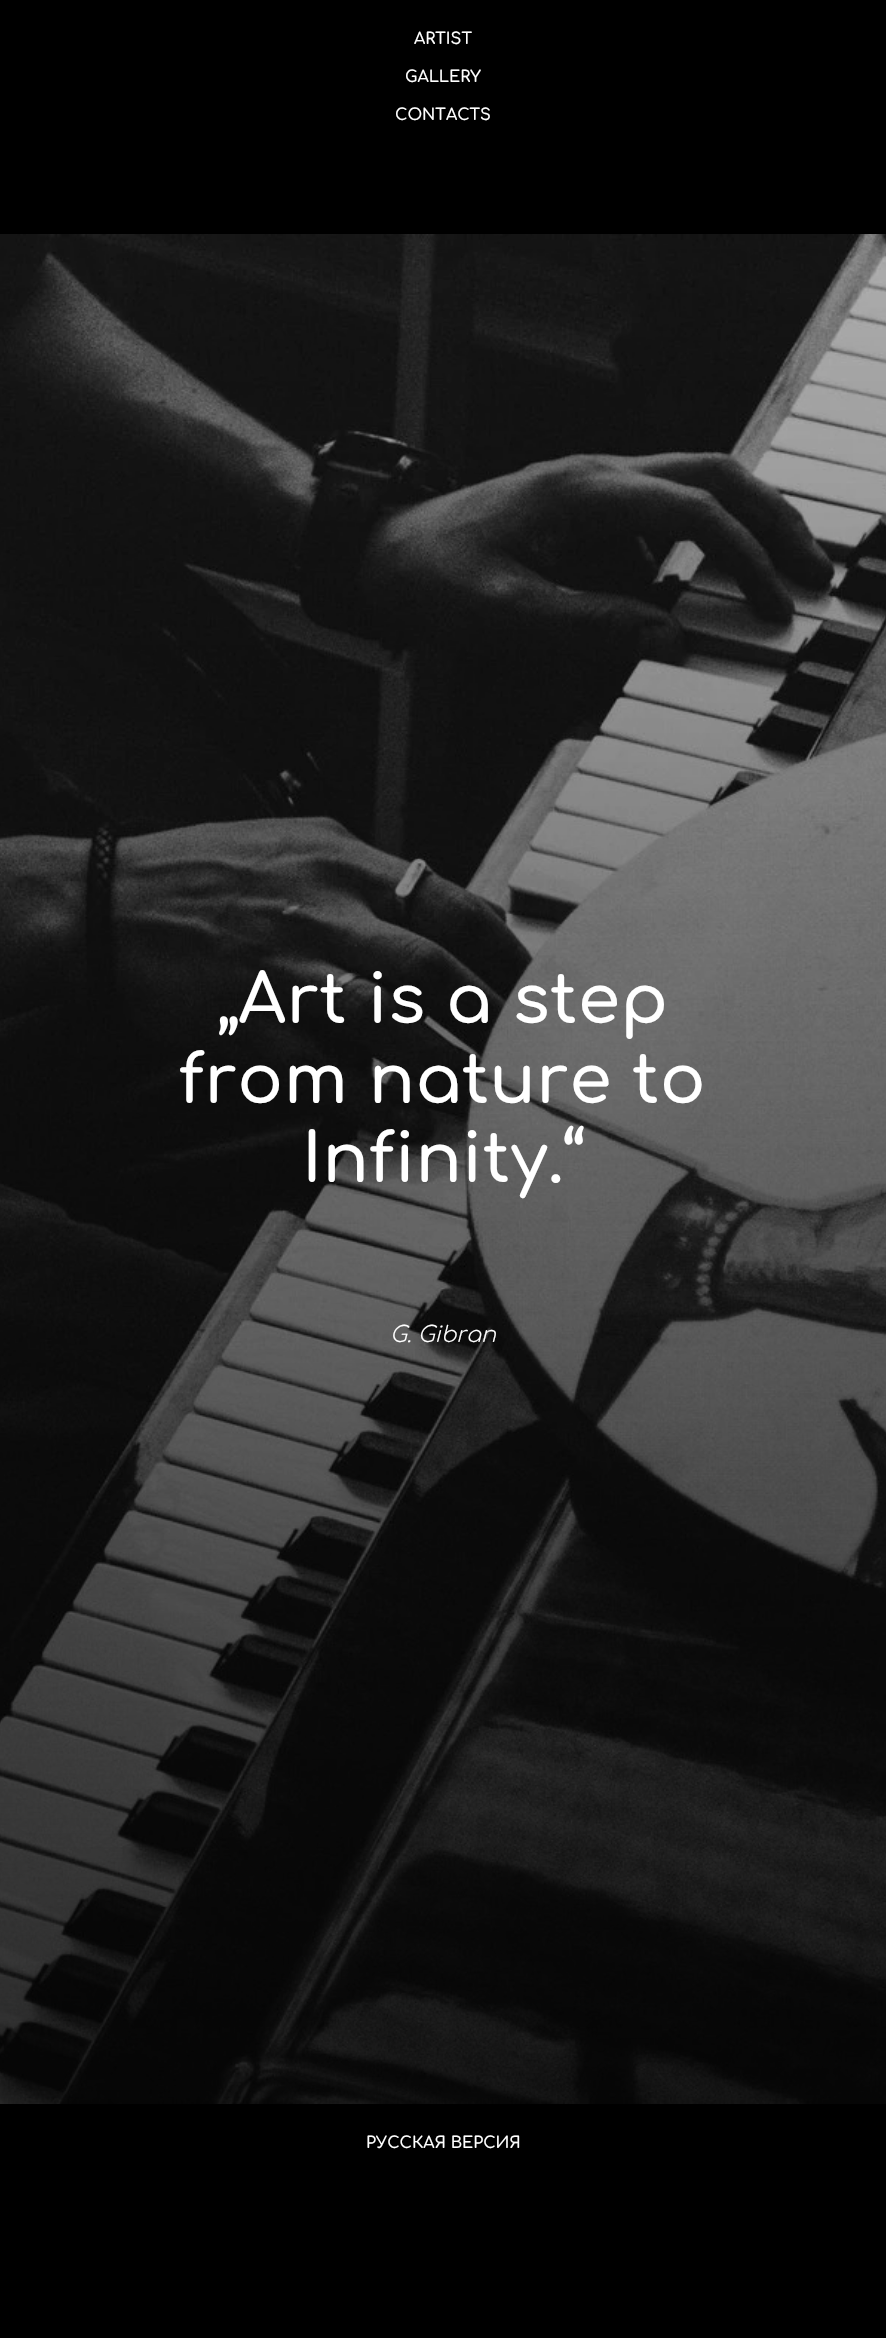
#include "include/core/SkBlurTypes.h"
#include "include/core/SkCanvas.h"
#include "include/core/SkData.h"
#include "include/core/SkFont.h"
#include "include/core/SkFontMgr.h"
#include "include/core/SkImage.h"
#include "include/core/SkMaskFilter.h"
#include "include/core/SkPaint.h"
#include "include/core/SkPathBuilder.h"
#include "include/core/SkTextBlob.h"
#include "include/effects/SkDashPathEffect.h"
#include "include/effects/SkGradientShader.h"
#include "include/utils/SkParsePath.h"

extern sk_sp<SkFontMgr> fontMgr;

void draw(SkCanvas* canvas) {
    SkPaint p;
    p.setAntiAlias(true);
    auto font = [&](const char* family, int weight, float size, bool italic = false) {
        SkFontStyle style(weight, SkFontStyle::kNormal_Width,
            italic ? SkFontStyle::kItalic_Slant : SkFontStyle::kUpright_Slant);
        SkFont result(fontMgr->matchFamilyStyle(family, style), size);
        result.setSubpixel(true);
        return result;
    };
    auto drawTracked = [&](const char* s, float x, float y, const SkFont& font, const SkPaint& ink, float letter, float word) {
        std::vector<SkGlyphID> glyphs(font.countText(s, strlen(s), SkTextEncoding::kUTF8));
        std::vector<float> xs(glyphs.size());
        font.textToGlyphs(s, strlen(s), SkTextEncoding::kUTF8, glyphs);
        font.getXPos(glyphs, xs, x);
        float extra = 0;
        for (size_t i = 0; i < glyphs.size(); i++) {
            xs[i] += extra;
            extra += letter + word * (glyphs[i] == font.unicharToGlyph(' '));
        }
        canvas->drawTextBlob(SkTextBlob::MakeFromPosHGlyphs(glyphs, xs, y, font), 0, 0, ink);
    };
    auto drawPhoto = [&](const char* path, float l, float t, float r, float b) {
        auto image = SkImages::DeferredFromEncodedData(SkData::MakeFromFileName(path));
        canvas->drawImageRect(image, SkRect::MakeLTRB(l, t, r, b), SkSamplingOptions());
    };
    canvas->clear(0xFFFFFFFF);
    p.setColor(0xFF000000);
    canvas->drawRect(SkRect::MakeLTRB(0, 0, 886, 234), p);
    auto font1 = font("Comfortaa", 600, 16);
    p.setColor(0xFFFFFFFF);
    {
        const struct { const char* s; float x, y; } items[] = {
            {"ARTIST", 414, 44},
            {"GALLERY", 405, 82},
            {"CONTACTS", 395, 120},
        };
        for (auto [s, x, y] : items) {
            canvas->drawString(s, x, y, font1, p);
        }
    }
    drawPhoto("media/1.png", 0, 234, 886, 2104);
    auto font2 = font("Comfortaa", 600, 68);
    {
        const struct { const char* s; float x, y; } items[] = {
            {"„Art is a step", 217, 1023},
            {"from nature to", 179, 1103},
            {"Infinity.“", 302, 1182},
        };
        for (auto [s, x, y] : items) {
            drawTracked(s, x, y, font2, p, 0.5f, 0);
        }
    }
    auto font3 = font("Comfortaa", 300, 22, true);
    canvas->drawString("G. Gibran", 390, 1342, font3, p);
    p.setColor(0xFF000000);
    canvas->drawRect(SkRect::MakeLTRB(0, 2104, 886, 2338), p);
    p.setColor(0xFFFFFFFF);
    canvas->drawString("РУССКАЯ ВЕРСИЯ", 366, 2148, font1, p);
}
